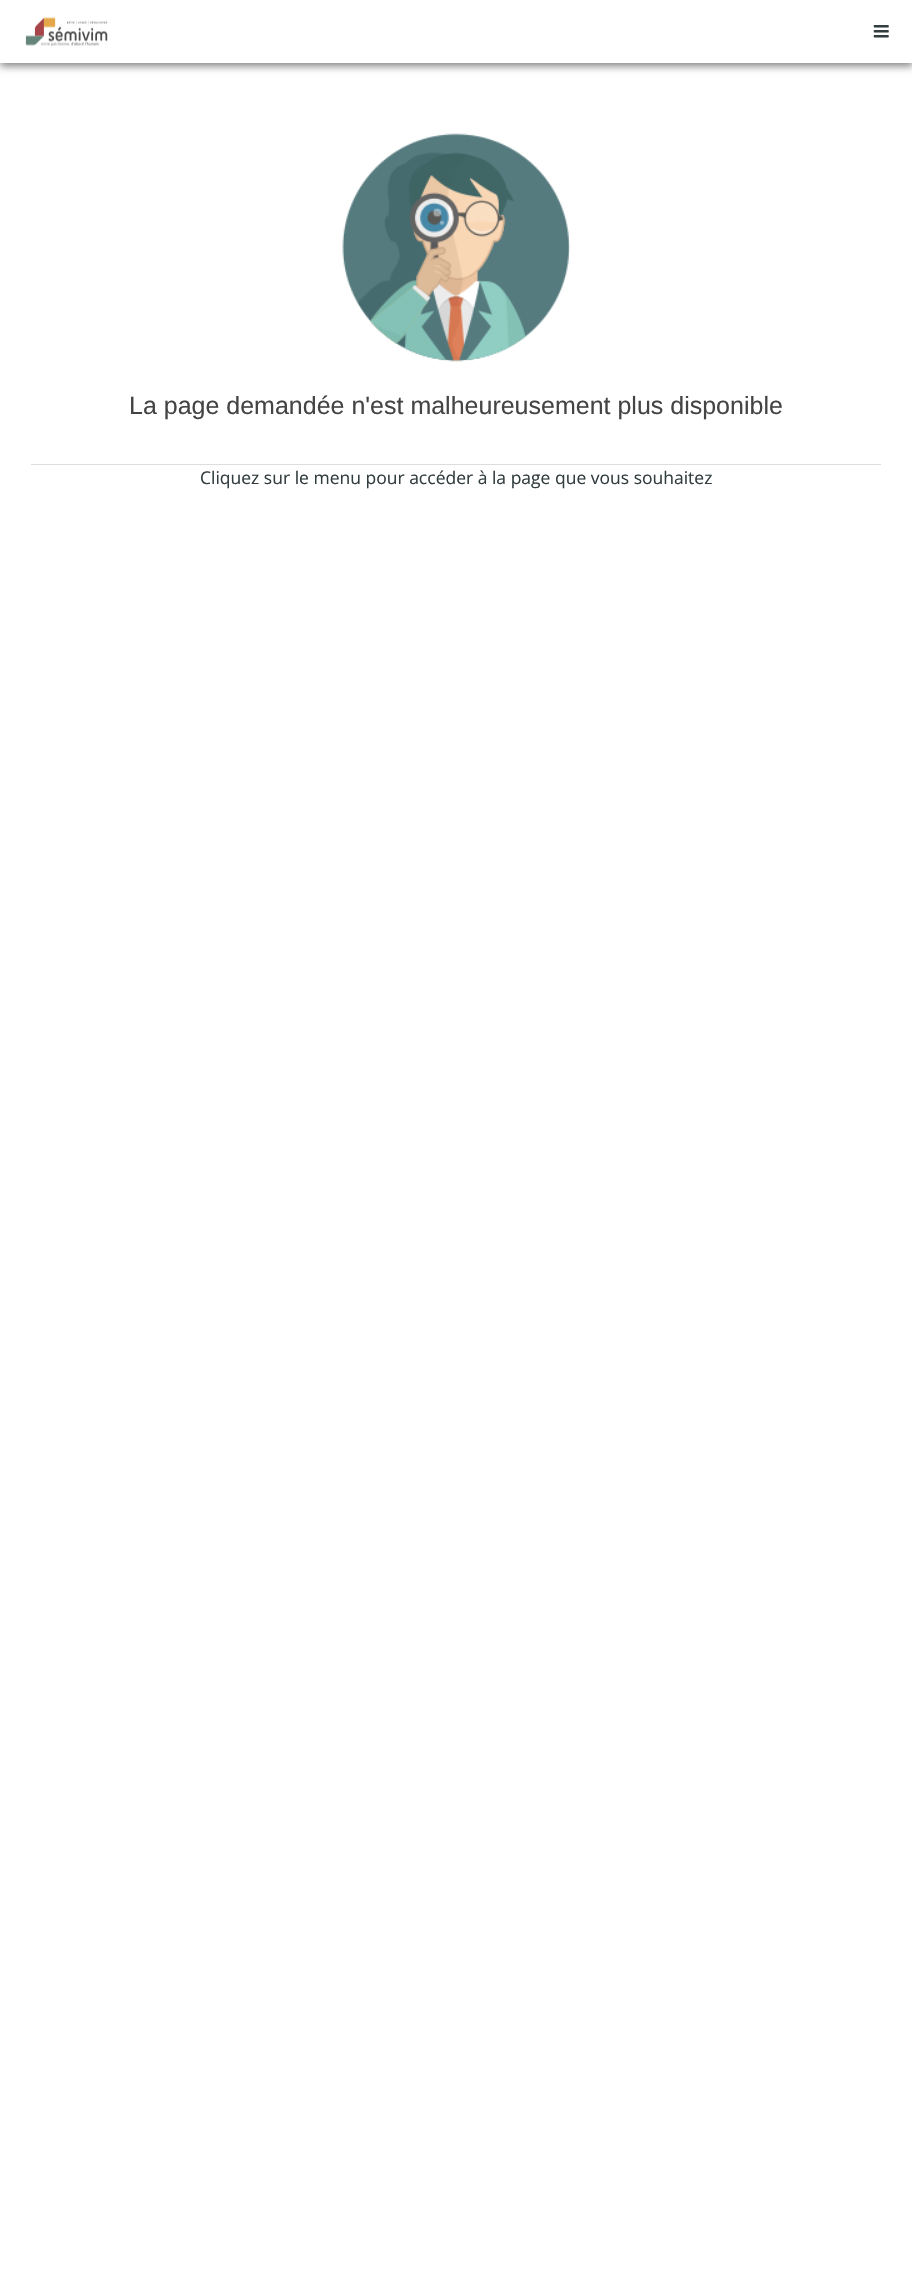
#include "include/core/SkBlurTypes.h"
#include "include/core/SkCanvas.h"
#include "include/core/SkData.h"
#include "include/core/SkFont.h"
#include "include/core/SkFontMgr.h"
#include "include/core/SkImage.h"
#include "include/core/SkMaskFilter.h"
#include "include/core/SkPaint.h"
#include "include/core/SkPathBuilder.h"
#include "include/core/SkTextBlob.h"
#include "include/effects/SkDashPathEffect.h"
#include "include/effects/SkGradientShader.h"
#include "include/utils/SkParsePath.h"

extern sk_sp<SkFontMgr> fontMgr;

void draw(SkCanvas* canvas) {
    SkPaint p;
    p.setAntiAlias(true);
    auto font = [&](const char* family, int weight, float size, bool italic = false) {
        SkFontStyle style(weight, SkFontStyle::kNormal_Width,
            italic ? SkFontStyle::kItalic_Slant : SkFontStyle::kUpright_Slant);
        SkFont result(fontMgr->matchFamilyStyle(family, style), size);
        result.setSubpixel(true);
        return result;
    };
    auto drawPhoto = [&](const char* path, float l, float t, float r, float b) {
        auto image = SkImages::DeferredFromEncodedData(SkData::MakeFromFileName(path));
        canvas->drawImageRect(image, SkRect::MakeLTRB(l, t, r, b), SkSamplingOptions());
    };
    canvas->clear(0xFFFFFFFF);
    p.setColor(0x80000000);
    p.setMaskFilter(SkMaskFilter::MakeBlur(kNormal_SkBlurStyle, 4));
    canvas->drawRect(SkRect::MakeLTRB(0, 4, 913, 66), p);
    p.setMaskFilter(nullptr);
    p.setColor(0xFFFFFFFF);
    canvas->drawRect(SkRect::MakeLTRB(0, 0, 912, 63), p);
    drawPhoto("media/1.png", 25, 17, 108, 47);
    drawPhoto("media/2.png", 873, 25, 889, 38);
    drawPhoto("media/3.png", 342, 133, 570, 362);
    auto font1 = font("Liberation Sans", 400, 25);
    p.setColor(0xFF444444);
    canvas->drawString("La page demandée n'est malheureusement plus disponible", 129, 414, font1, p);
    p.setColor(0xFFDDDDDD);
    canvas->drawRect(SkRect::MakeLTRB(31, 464, 881, 465), p);
    auto font2 = font("Open Sans", 400, 17.5f);
    p.setColor(0xFF323D3F);
    canvas->drawString("Cliquez sur le menu pour accéder à la page que vous souhaitez", 200, 484, font2, p);
}
